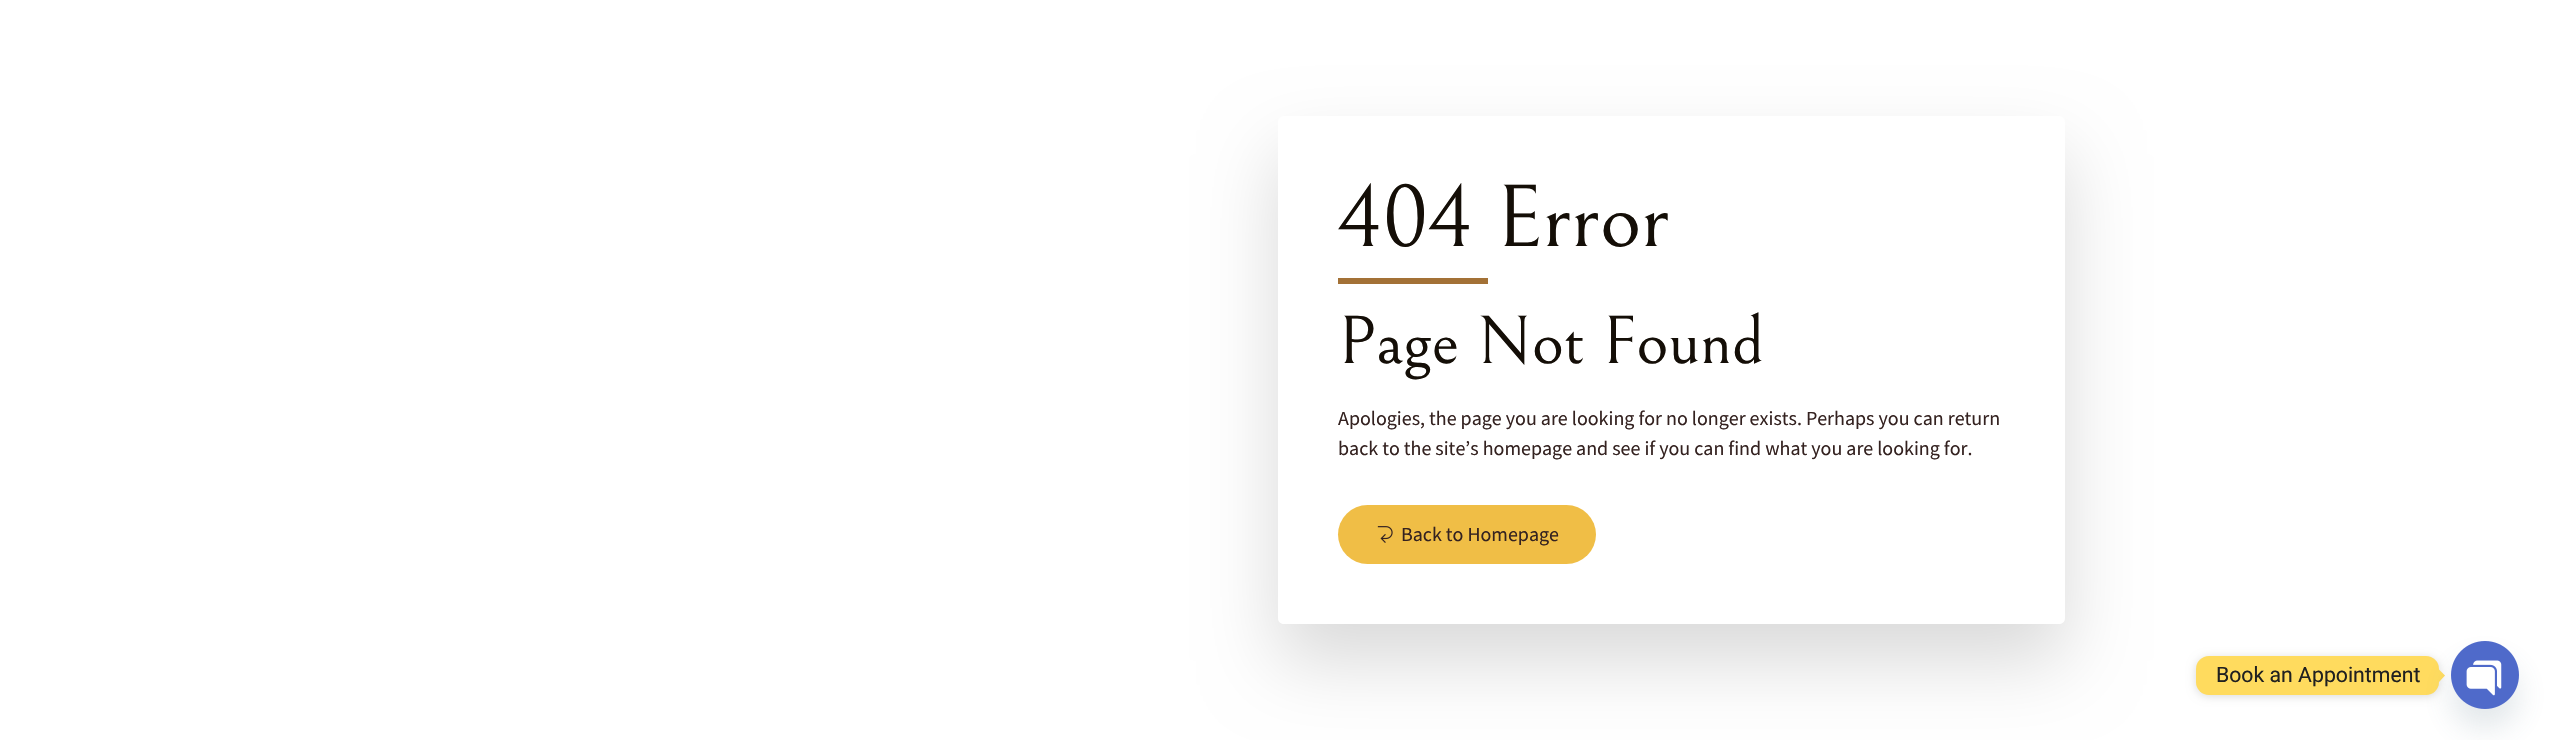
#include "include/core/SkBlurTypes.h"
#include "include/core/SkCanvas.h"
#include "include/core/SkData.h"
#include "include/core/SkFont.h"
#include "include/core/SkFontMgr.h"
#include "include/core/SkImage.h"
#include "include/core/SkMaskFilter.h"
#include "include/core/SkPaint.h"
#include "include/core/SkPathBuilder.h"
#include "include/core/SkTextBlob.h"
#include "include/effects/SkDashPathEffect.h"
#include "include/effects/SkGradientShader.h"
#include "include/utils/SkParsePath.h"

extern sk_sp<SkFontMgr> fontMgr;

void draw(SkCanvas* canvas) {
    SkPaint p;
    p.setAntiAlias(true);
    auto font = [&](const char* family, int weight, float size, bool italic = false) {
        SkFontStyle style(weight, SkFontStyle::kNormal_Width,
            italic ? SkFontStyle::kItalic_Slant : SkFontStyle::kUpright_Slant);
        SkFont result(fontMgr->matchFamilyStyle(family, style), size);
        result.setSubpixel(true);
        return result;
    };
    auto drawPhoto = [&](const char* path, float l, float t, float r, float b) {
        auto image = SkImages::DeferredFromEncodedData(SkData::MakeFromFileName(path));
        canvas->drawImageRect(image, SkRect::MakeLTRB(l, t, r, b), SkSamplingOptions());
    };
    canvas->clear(0xFFFFFFFF);
    canvas->save();
    canvas->clipPath(SkPathBuilder(SkPathFillType::kEvenOdd).moveTo(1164, 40).lineTo(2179, 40).lineTo(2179, 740).lineTo(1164, 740).close().moveTo(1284, 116).lineTo(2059, 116).cubicTo(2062.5f, 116, 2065, 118.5f, 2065, 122).lineTo(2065, 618).cubicTo(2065, 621.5f, 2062.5f, 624, 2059, 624).lineTo(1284, 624).cubicTo(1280.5f, 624, 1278, 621.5f, 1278, 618).lineTo(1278, 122).cubicTo(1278, 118.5f, 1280.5f, 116, 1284, 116).close().detach(), true);
    p.setColor(0x26000000);
    p.setMaskFilter(SkMaskFilter::MakeBlur(kNormal_SkBlurStyle, 37.5f));
    canvas->drawRoundRect(SkRect::MakeLTRB(1278, 154, 2065, 661), 6, 6, p);
    p.setMaskFilter(nullptr);
    canvas->restore();
    p.setColor(0x78FFFFFF);
    canvas->drawRoundRect(SkRect::MakeLTRB(1278, 116, 2065, 624), 6, 6, p);
    auto font1 = font("Bellefair", 400, 89);
    p.setColor(0xFF140E07);
    canvas->drawString("404 Error", 1338, 246, font1, p);
    p.setColor(0xFFA37136);
    canvas->drawRect(SkRect::MakeLTRB(1338, 278, 1488, 284), p);
    auto font2 = font("Bellefair", 400, 68.75f);
    p.setColor(0xFF140E07);
    canvas->drawString("Page Not Found", 1338, 363, font2, p);
    auto font3 = font("Source Sans Pro", 400, 20);
    p.setColor(0xFF342220);
    canvas->drawString("Apologies, the page you are looking for no longer exists. Perhaps you can return", 1338, 425, font3, p);
    canvas->drawString("back to the site’s homepage and see if you can find what you are looking for.", 1338, 455, font3, p);
    p.setColor(0xFFF0BE46);
    canvas->drawRoundRect(SkRect::MakeLTRB(1338, 505, 1596, 564), 29.5f, 29.5f, p);
    drawPhoto("media/1.png", 1377, 526, 1393, 543);
    p.setColor(0xFF342220);
    canvas->drawString("Back to Homepage", 1401, 541, font3, p);
    p.setColor(0x26000000);
    p.setMaskFilter(SkMaskFilter::MakeBlur(kNormal_SkBlurStyle, 5));
    canvas->drawRoundRect(SkRect::MakeLTRB(2196, 658, 2439, 696), 13, 13, p);
    p.setMaskFilter(nullptr);
    p.setColor(0xFFFFDB5E);
    canvas->drawRoundRect(SkRect::MakeLTRB(2196, 656, 2439, 695), 13, 13, p);
    auto font4 = font("Roboto", 400, 21.25f);
    p.setColor(0xFF202020);
    canvas->drawString("Book an Appointment", 2216, 682, font4, p);
    p.setColor(0xFFFFDB5E);
    canvas->drawPath(SkPathBuilder().moveTo(2439, 682).lineTo(2439, 669.5f).lineTo(2445, 675.5f).close().detach(), p);
    p.setColor(0x2949687E);
    p.setMaskFilter(SkMaskFilter::MakeBlur(kNormal_SkBlurStyle, 15));
    canvas->drawRoundRect(SkRect::MakeLTRB(2451, 661, 2519, 729), 34, 34, p);
    p.setMaskFilter(nullptr);
    drawPhoto("media/2.png", 2451, 641, 2519, 709);
}
